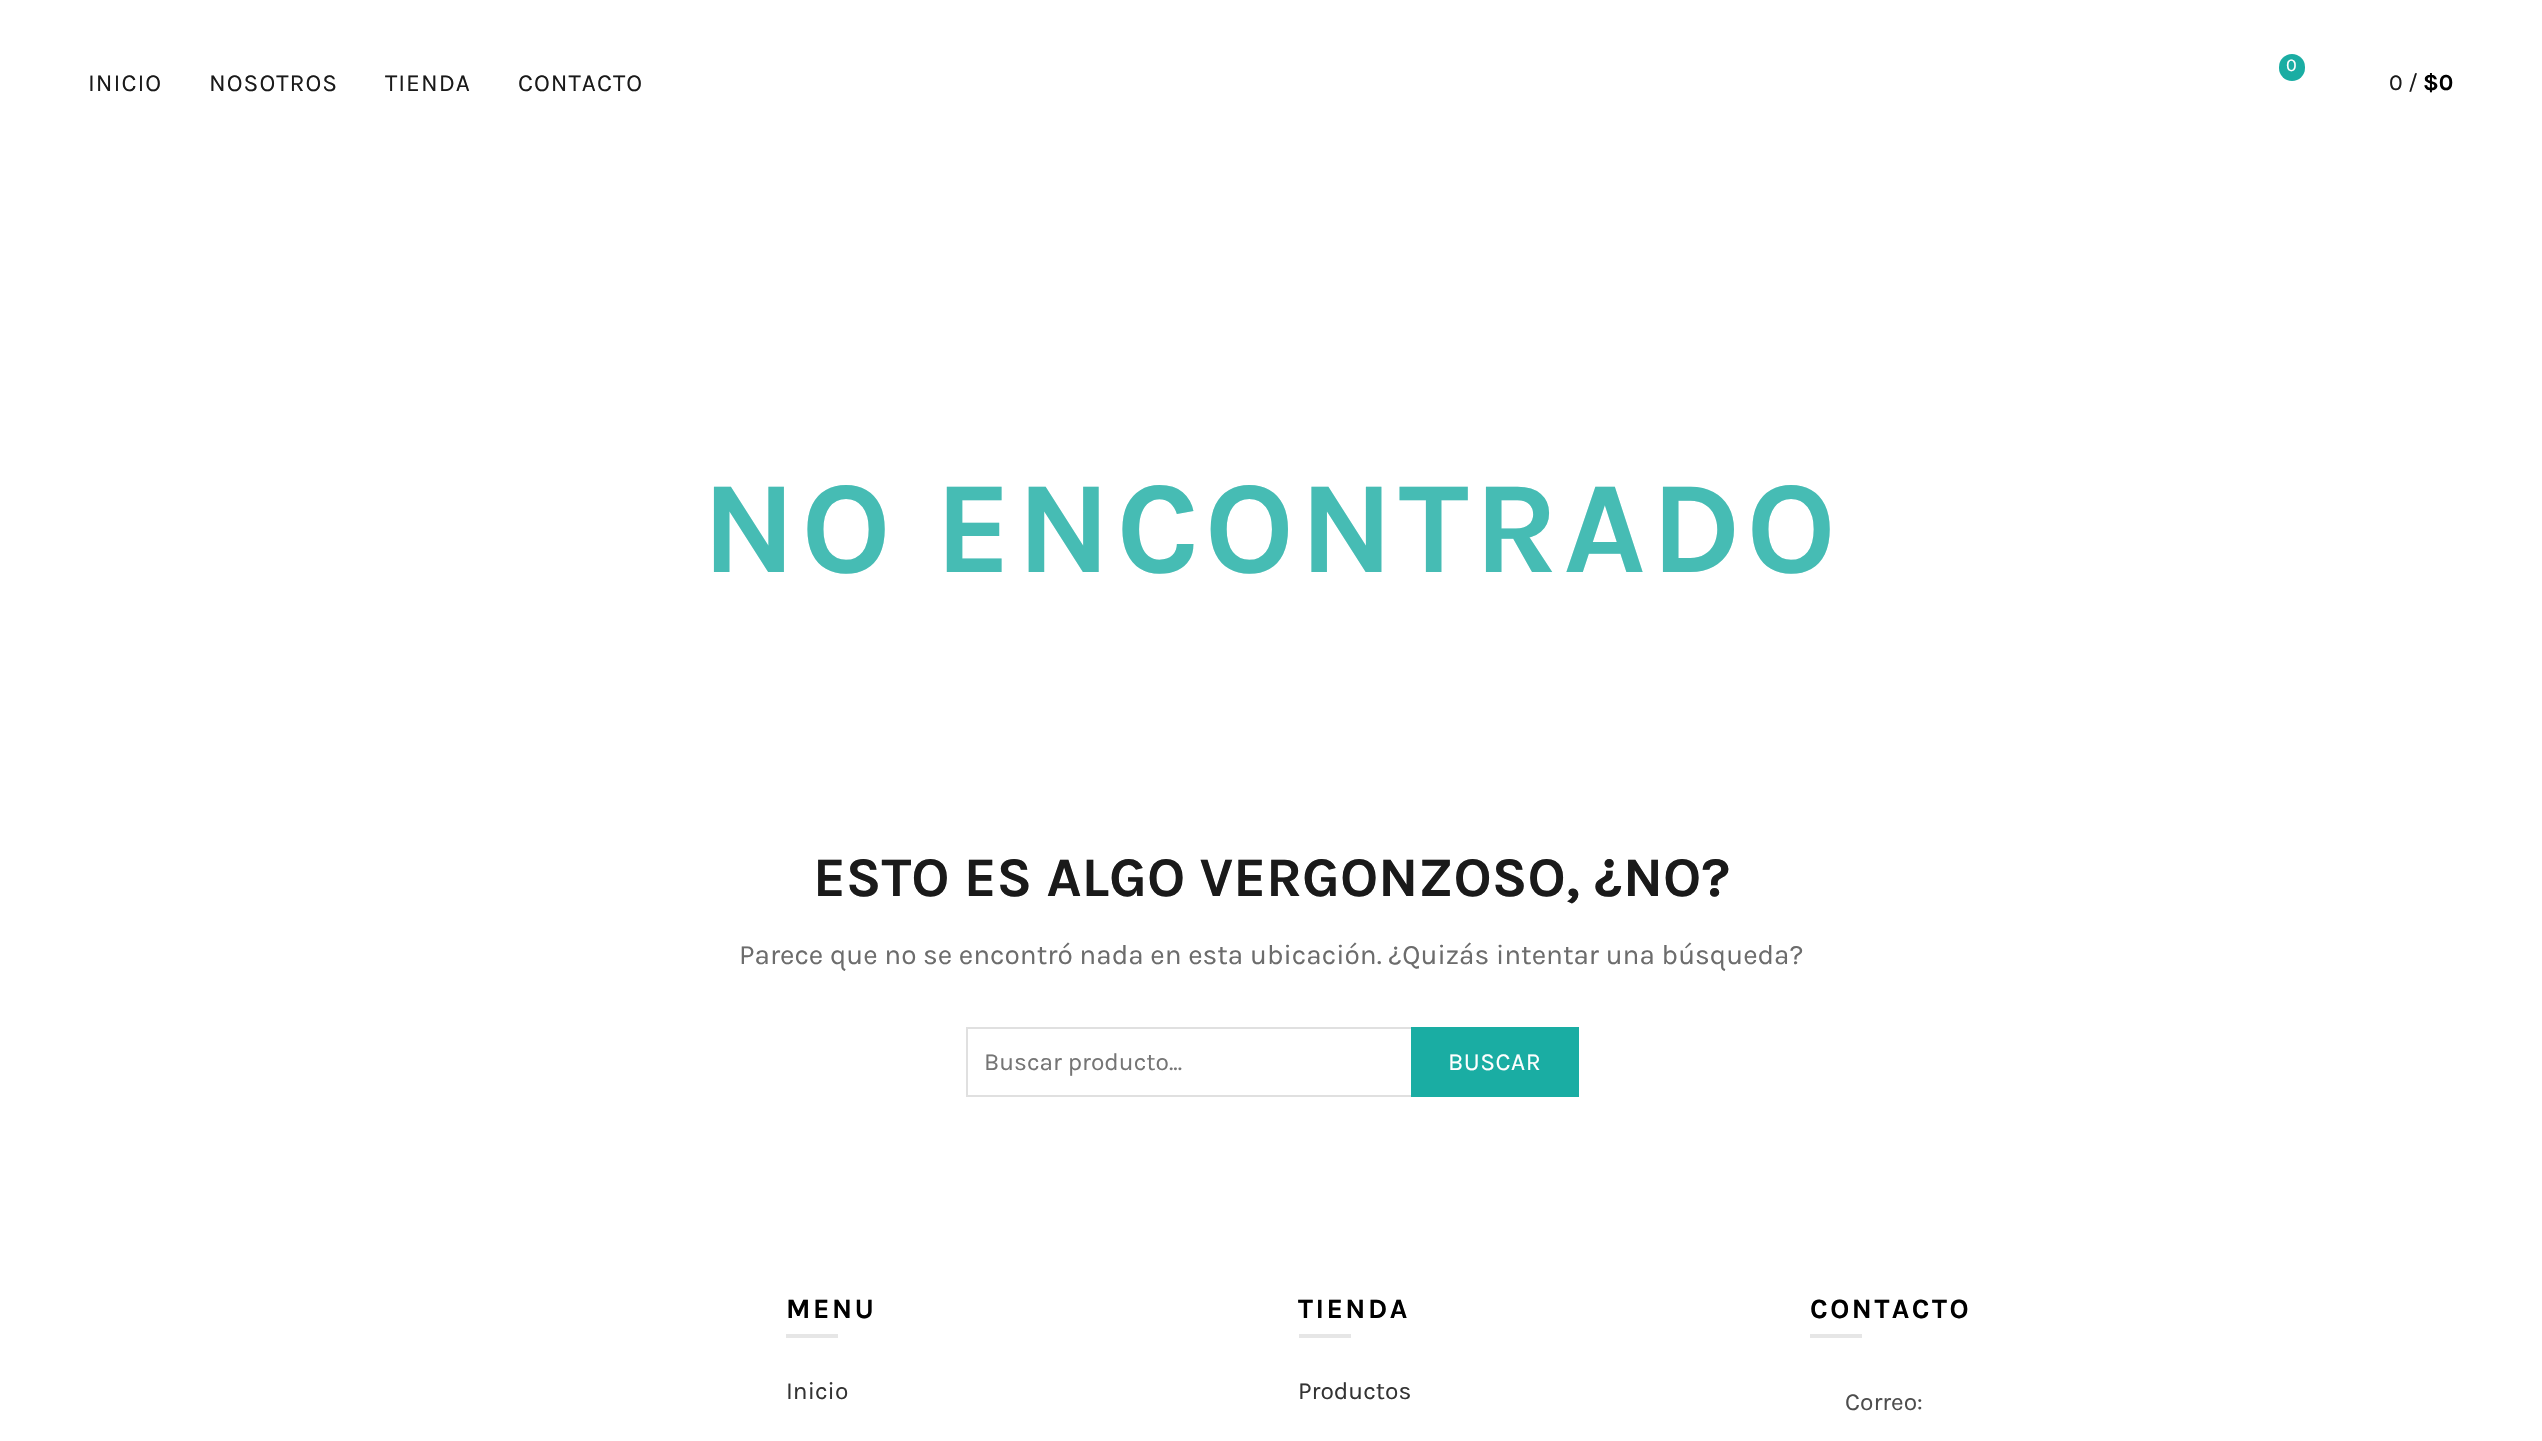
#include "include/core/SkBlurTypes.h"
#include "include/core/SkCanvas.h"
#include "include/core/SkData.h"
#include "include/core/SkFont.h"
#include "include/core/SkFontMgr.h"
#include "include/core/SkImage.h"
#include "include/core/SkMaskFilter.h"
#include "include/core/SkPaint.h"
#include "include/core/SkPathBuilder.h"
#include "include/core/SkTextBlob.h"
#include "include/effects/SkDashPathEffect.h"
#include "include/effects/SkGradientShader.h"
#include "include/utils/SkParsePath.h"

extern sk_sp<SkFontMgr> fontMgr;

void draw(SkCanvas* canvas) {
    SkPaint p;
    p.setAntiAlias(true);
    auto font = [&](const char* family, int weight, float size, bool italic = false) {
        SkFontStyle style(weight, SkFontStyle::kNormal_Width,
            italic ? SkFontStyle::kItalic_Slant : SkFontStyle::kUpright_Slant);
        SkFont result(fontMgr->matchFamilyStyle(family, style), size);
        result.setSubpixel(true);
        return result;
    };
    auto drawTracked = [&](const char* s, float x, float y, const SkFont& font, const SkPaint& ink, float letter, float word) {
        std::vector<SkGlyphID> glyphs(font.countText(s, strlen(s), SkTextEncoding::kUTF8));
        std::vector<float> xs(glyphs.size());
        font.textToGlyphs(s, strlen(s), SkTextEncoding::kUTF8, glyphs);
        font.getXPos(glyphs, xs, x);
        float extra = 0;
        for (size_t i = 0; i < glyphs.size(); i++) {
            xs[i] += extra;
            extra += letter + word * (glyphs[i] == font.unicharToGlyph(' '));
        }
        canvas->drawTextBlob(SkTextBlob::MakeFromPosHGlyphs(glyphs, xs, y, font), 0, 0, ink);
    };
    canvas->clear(0xFFFFFFFF);
    auto font1 = font("Karla", 400, 24.5f);
    p.setColor(0xFF1A1A1A);
    {
        const struct { const char* s; float x, y; } items[] = {
            {"INICIO", 88, 91},
            {"NOSOTROS", 209, 91},
            {"TIENDA", 385, 91},
            {"CONTACTO", 518, 91},
        };
        for (auto [s, x, y] : items) {
            drawTracked(s, x, y, font1, p, 1, 0);
        }
    }
    p.setColor(0xFF1AADA3);
    canvas->drawRoundRect(SkRect::MakeLTRB(2279, 54, 2305, 81), 13, 13, p);
    auto font2 = font("Karla", 400, 18);
    p.setColor(0xFFFFFFFF);
    canvas->drawString("0", 2286, 71, font2, p);
    auto font3 = font("Karla", 400, 23);
    p.setColor(0xFF1A1A1A);
    canvas->drawString("0 /", 2389, 90, font3, p);
    auto font4 = font("Karla", 700, 23);
    p.setColor(0xFF000000);
    canvas->drawString("$0", 2423, 90, font4, p);
    auto font5 = font("Karla", 700, 131.25f);
    p.setColor(0xFF46BCB4);
    drawTracked("NO ENCONTRADO", 702, 572, font5, p, 5.25f, 0);
    auto font6 = font("Karla", 700, 56);
    p.setColor(0xFF1A1A1A);
    canvas->drawString("ESTO ES ALGO VERGONZOSO, ¿NO?", 813, 896, font6, p);
    auto font7 = font("Karla", 400, 28);
    p.setColor(0xFF6C6C6C);
    canvas->drawString("Parece que no se encontró nada en esta ubicación. ¿Quizás intentar una búsqueda?", 739, 964, font7, p);
    p.setStyle(SkPaint::kStroke_Style);
    p.setStrokeWidth(2);
    p.setColor(0xFFE0E0E0);
    canvas->drawRect(SkRect::MakeLTRB(967, 1028, 1578, 1096), p);
    p.setStyle(SkPaint::kFill_Style);
    p.setColor(0xFF757575);
    canvas->drawString("Buscar producto...", 984, 1070, font1, p);
    p.setColor(0xFF1AADA3);
    canvas->drawRect(SkRect::MakeLTRB(1411, 1027, 1579, 1097), p);
    p.setColor(0xFFFFFFFF);
    drawTracked("BUSCAR", 1448, 1070, font1, p, 0.5f, 0);
    auto font8 = font("Karla", 700, 28);
    p.setColor(0xFF000000);
    drawTracked("MENU", 786, 1318, font8, p, 2.5f, 0);
    p.setColor(0xFFE6E6E6);
    canvas->drawRect(SkRect::MakeLTRB(786, 1334, 838, 1338), p);
    p.setColor(0xFF333333);
    canvas->drawString("Inicio", 786, 1399, font1, p);
    p.setColor(0xFF000000);
    drawTracked("TIENDA", 1298, 1318, font8, p, 2.5f, 0);
    p.setColor(0xFFE6E6E6);
    canvas->drawRect(SkRect::MakeLTRB(1299, 1334, 1351, 1338), p);
    p.setColor(0xFF333333);
    canvas->drawString("Productos", 1298, 1399, font1, p);
    p.setColor(0xFF000000);
    drawTracked("CONTACTO", 1810, 1318, font8, p, 2.5f, 0);
    p.setColor(0xFFE6E6E6);
    canvas->drawRect(SkRect::MakeLTRB(1810, 1334, 1862, 1338), p);
    p.setColor(0xFF4D4D4D);
    canvas->drawString("Correo:", 1845, 1410, font1, p);
}
